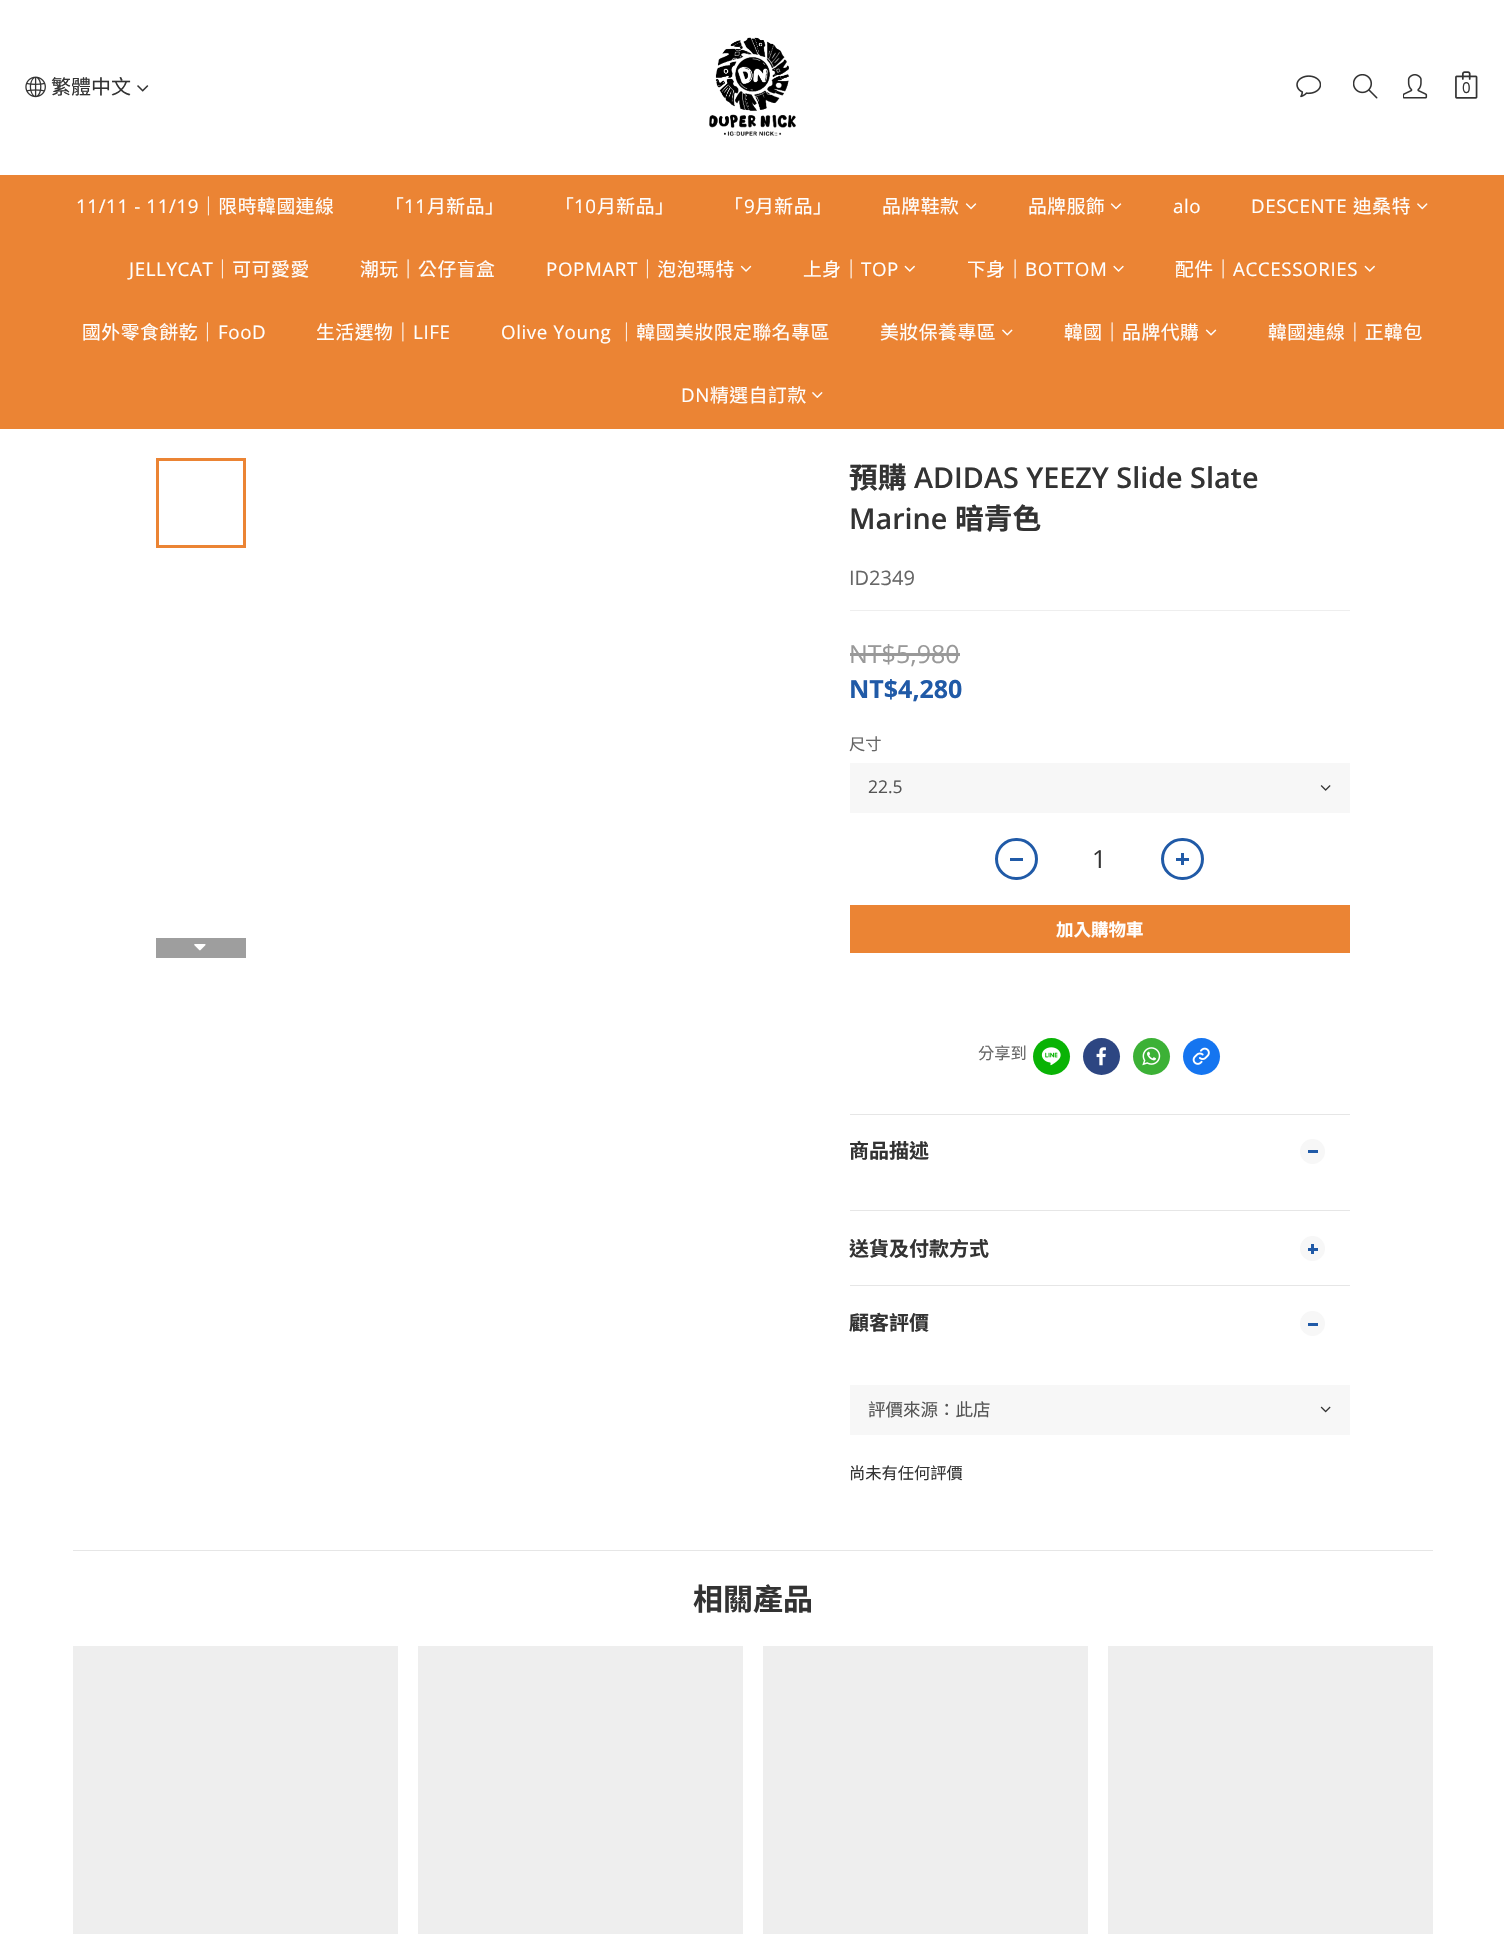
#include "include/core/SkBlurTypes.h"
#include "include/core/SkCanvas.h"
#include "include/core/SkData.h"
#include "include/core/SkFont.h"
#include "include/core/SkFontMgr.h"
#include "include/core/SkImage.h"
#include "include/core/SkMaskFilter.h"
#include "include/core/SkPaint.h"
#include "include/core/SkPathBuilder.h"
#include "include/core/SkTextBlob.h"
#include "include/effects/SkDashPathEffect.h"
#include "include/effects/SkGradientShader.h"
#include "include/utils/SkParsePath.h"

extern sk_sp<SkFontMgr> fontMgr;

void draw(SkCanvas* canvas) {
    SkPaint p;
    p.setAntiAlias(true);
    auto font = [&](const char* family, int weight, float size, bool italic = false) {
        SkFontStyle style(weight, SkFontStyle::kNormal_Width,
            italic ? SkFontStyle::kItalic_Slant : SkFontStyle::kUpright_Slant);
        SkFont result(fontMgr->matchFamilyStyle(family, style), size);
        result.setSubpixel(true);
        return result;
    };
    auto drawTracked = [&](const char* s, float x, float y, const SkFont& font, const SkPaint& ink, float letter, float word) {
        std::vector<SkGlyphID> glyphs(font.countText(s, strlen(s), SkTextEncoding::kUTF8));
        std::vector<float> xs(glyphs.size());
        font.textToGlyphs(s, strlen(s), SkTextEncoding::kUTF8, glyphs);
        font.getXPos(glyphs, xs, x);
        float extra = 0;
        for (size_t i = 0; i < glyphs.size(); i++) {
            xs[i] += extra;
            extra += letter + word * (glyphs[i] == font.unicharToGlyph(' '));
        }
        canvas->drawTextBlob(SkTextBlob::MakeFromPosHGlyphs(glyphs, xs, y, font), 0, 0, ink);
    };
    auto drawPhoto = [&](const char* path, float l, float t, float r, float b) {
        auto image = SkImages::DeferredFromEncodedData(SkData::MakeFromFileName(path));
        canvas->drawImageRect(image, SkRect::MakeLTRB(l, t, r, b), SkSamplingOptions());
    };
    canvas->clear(0xFFFFFFFF);
    drawPhoto("media/1.png", 25, 76, 46, 98);
    auto font1 = font("Noto Sans TC", 400, 20);
    p.setColor(0xFF333333);
    canvas->drawString("繁體中文", 51, 94, font1, p);
    drawPhoto("media/2.png", 137, 85, 149, 92);
    drawPhoto("media/3.png", 709, 37, 796, 136);
    drawPhoto("media/4.png", 1296, 75, 1321, 98);
    drawPhoto("media/5.png", 1353, 74, 1378, 99);
    drawPhoto("media/6.png", 1403, 74, 1428, 99);
    drawPhoto("media/7.png", 1455, 71, 1478, 99);
    auto font2 = font("Open Sans", 400, 15);
    canvas->drawString("0", 1462, 93, font2, p);
    p.setColor(0xFFEB8434);
    canvas->drawRect(SkRect::MakeLTRB(0, 175, 1504, 429), p);
    auto font3 = font("Open Sans", 400, 18.75f);
    p.setColor(0xFFFFFFFF);
    drawTracked("11/11 - 11/19", 76, 213, font3, p, 0.6f, 0);
    auto font4 = font("Noto Sans TC", 400, 18.75f);
    drawTracked("｜限時韓國連線", 199, 213, font4, p, 0.6f, 0);
    drawTracked("「", 385, 213, font4, p, 0.6f, 0);
    drawTracked("11", 404, 213, font3, p, 0.6f, 0);
    drawTracked("月新品」", 427, 213, font4, p, 0.6f, 0);
    drawTracked("「", 555, 213, font4, p, 0.6f, 0);
    drawTracked("10", 574, 213, font3, p, 0.6f, 0);
    drawTracked("月新品」", 597, 213, font4, p, 0.6f, 0);
    drawTracked("「", 724, 213, font4, p, 0.6f, 0);
    drawTracked("9", 744, 213, font3, p, 0.6f, 0);
    drawTracked("月新品」", 755, 213, font4, p, 0.6f, 0);
    drawTracked("品牌鞋款", 882, 213, font4, p, 0.6f, 0);
    drawPhoto("media/8.png", 965, 203, 977, 210);
    drawTracked("品牌服飾", 1028, 213, font4, p, 0.6f, 0);
    drawPhoto("media/8.png", 1110, 203, 1122, 210);
    drawTracked("alo", 1173, 213, font3, p, 0.6f, 0);
    drawTracked("DESCENTE", 1251, 213, font3, p, 0.6f, 0);
    drawTracked("迪桑特", 1353, 213, font4, p, 0.6f, 0);
    drawPhoto("media/9.png", 1417, 203, 1428, 210);
    drawTracked("JELLYCAT", 129, 276, font3, p, 0.6f, 0);
    drawTracked("｜可可愛愛", 213, 276, font4, p, 0.6f, 0);
    drawTracked("潮玩｜公仔盲盒", 360, 276, font4, p, 0.6f, 0);
    drawTracked("POPMART", 546, 276, font3, p, 0.6f, 0);
    drawTracked("｜泡泡瑪特", 638, 276, font4, p, 0.6f, 0);
    drawPhoto("media/10.png", 740, 265, 752, 272);
    drawTracked("上身｜", 803, 276, font4, p, 0.6f, 0);
    drawTracked("TOP", 861, 276, font3, p, 0.6f, 0);
    drawPhoto("media/11.png", 904, 265, 915, 272);
    drawTracked("下身｜", 967, 276, font4, p, 0.6f, 0);
    drawTracked("BOTTOM", 1025, 276, font3, p, 0.6f, 0);
    drawPhoto("media/12.png", 1113, 265, 1124, 272);
    drawTracked("配件｜", 1175, 276, font4, p, 0.6f, 0);
    drawTracked("ACCESSORIES", 1233, 276, font3, p, 0.6f, 0);
    drawPhoto("media/11.png", 1364, 265, 1375, 272);
    drawTracked("國外零食餅乾｜", 82, 339, font4, p, 0.6f, 0);
    drawTracked("FooD", 218, 339, font3, p, 0.6f, 0);
    drawTracked("生活選物｜", 316, 339, font4, p, 0.6f, 0);
    drawTracked("LIFE", 413, 339, font3, p, 0.6f, 0);
    drawTracked("Olive Young", 501, 339, font3, p, 0.6f, 0);
    drawTracked("｜韓國美妝限定聯名專區", 617, 339, font4, p, 0.6f, 0);
    drawTracked("美妝保養專區", 880, 339, font4, p, 0.6f, 0);
    drawPhoto("media/13.png", 1002, 329, 1013, 336);
    drawTracked("韓國｜品牌代購", 1064, 339, font4, p, 0.6f, 0);
    drawPhoto("media/14.png", 1205, 329, 1217, 336);
    drawTracked("韓國連線｜正韓包", 1268, 339, font4, p, 0.6f, 0);
    drawTracked("DN", 681, 402, font3, p, 0.6f, 0);
    drawTracked("精選自訂款", 710, 402, font4, p, 0.6f, 0);
    drawPhoto("media/15.png", 812, 392, 823, 398);
    p.setStyle(SkPaint::kStroke_Style);
    p.setStrokeWidth(3);
    p.setColor(0xFFEB8434);
    canvas->drawRect(SkRect::MakeLTRB(157.5f, 459.5f, 244.5f, 546.5f), p);
    p.setStyle(SkPaint::kFill_Style);
    p.setColor(0xFF9E9E9E);
    canvas->drawRect(SkRect::MakeLTRB(156, 938, 246, 958), p);
    drawPhoto("media/16.png", 194, 944, 206, 951);
    auto font5 = font("Noto Sans TC", 700, 28.75f);
    p.setColor(0xFF333333);
    canvas->drawString("預購", 849, 488, font5, p);
    auto font6 = font("Open Sans", 600, 28.75f);
    canvas->drawString("ADIDAS YEEZY Slide Slate", 914, 488, font6, p);
    canvas->drawString("Marine", 849, 529, font6, p);
    canvas->drawString("暗青色", 955, 529, font5, p);
    auto font7 = font("Open Sans", 400, 20);
    p.setColor(0xFF666666);
    canvas->drawString("ID2349", 849, 585, font7, p);
    p.setColor(0xFFEEEEEE);
    canvas->drawRect(SkRect::MakeLTRB(850, 610, 1350, 611), p);
    auto font8 = font("Open Sans", 400, 25);
    p.setColor(0xFF999999);
    canvas->drawString("NT$5,980", 849, 663, font8, p);
    canvas->drawRect(SkRect::MakeLTRB(850, 653, 960, 656), p);
    auto font9 = font("Open Sans", 700, 25);
    p.setColor(0xFF205AA7);
    canvas->drawString("NT$4,280", 849, 698, font9, p);
    auto font10 = font("Noto Sans TC", 400, 16.25f);
    p.setColor(0xFF666666);
    canvas->drawString("尺寸", 849, 750, font10, p);
    p.setColor(0xFFF7F7F7);
    canvas->drawRect(SkRect::MakeLTRB(850, 763, 1350, 813), p);
    auto font11 = font("Open Sans", 400, 17.5f);
    p.setColor(0xFF555555);
    canvas->drawString("22.5", 868, 793, font11, p);
    drawPhoto("media/17.png", 1320, 785, 1331, 791);
    p.setStyle(SkPaint::kStroke_Style);
    p.setColor(0xFF205AA7);
    canvas->drawRoundRect(SkRect::MakeLTRB(996.5f, 839.5f, 1036.5f, 878.5f), 19.5f, 19.5f, p);
    p.setStyle(SkPaint::kFill_Style);
    canvas->drawRect(SkRect::MakeLTRB(1010, 858, 1023, 861), p);
    p.setColor(0xFF333333);
    canvas->drawString("1", 1092, 868, font8, p);
    p.setStyle(SkPaint::kStroke_Style);
    p.setColor(0xFF205AA7);
    canvas->drawRoundRect(SkRect::MakeLTRB(1162.5f, 839.5f, 1202.5f, 878.5f), 19.5f, 19.5f, p);
    p.setStyle(SkPaint::kFill_Style);
    {
        const struct { float l, t, r, b; SkColor color; } items[] = {
            {1176, 858, 1189, 861, 0xFF205AA7},
            {1181, 853, 1184, 865, 0xFF205AA7},
            {850, 905, 1350, 953, 0xFFEB8434},
        };
        for (auto [l, t, r, b, color] : items) {
            p.setColor(color);
            canvas->drawRect(SkRect::MakeLTRB(l, t, r, b), p);
        }
    }
    auto font12 = font("Noto Sans TC", 700, 17.5f);
    p.setColor(0xFFFFFFFF);
    canvas->drawString("加入購物車", 1056, 936, font12, p);
    p.setColor(0xFF666666);
    canvas->drawString("分享到", 978, 1059, font10, p);
    p.setColor(0xFF09B305);
    canvas->drawCircle(1051.5f, 1056.5f, 18.5f, p);
    drawPhoto("media/18.png", 1041, 1047, 1061, 1066);
    p.setColor(0xFF2D4682);
    canvas->drawCircle(1101.5f, 1056.5f, 18.5f, p);
    drawPhoto("media/19.png", 1096, 1047, 1106, 1066);
    p.setColor(0xFF3CB136);
    canvas->drawCircle(1151.5f, 1056.5f, 18.5f, p);
    drawPhoto("media/20.png", 1142, 1047, 1161, 1066);
    p.setColor(0xFF1575F0);
    canvas->drawCircle(1201.5f, 1056.5f, 18.5f, p);
    drawPhoto("media/21.png", 1192, 1047, 1210, 1065);
    p.setColor(0xFFE6E6E6);
    canvas->drawRect(SkRect::MakeLTRB(850, 1114, 1350, 1115), p);
    auto font13 = font("Noto Sans TC", 700, 20);
    p.setColor(0xFF333333);
    canvas->drawString("商品描述", 849, 1158, font13, p);
    p.setColor(0xFFF7F7F7);
    canvas->drawCircle(1312.5f, 1151.5f, 12.5f, p);
    p.setColor(0xFF205AA7);
    canvas->drawRect(SkRect::MakeLTRB(1308, 1150, 1318, 1153), p);
    p.setColor(0xFFE6E6E6);
    canvas->drawRect(SkRect::MakeLTRB(850, 1210, 1350, 1211), p);
    p.setColor(0xFF333333);
    canvas->drawString("送貨及付款方式", 849, 1256, font13, p);
    p.setColor(0xFFF7F7F7);
    canvas->drawCircle(1312.5f, 1248.5f, 12.5f, p);
    {
        const struct { float l, t, r, b; SkColor color; } items[] = {
            {1308, 1248, 1318, 1251, 0xFF205AA7},
            {1311, 1244, 1314, 1254, 0xFF205AA7},
            {850, 1285, 1350, 1286, 0xFFE6E6E6},
        };
        for (auto [l, t, r, b, color] : items) {
            p.setColor(color);
            canvas->drawRect(SkRect::MakeLTRB(l, t, r, b), p);
        }
    }
    p.setColor(0xFF333333);
    canvas->drawString("顧客評價", 849, 1330, font13, p);
    p.setColor(0xFFF7F7F7);
    canvas->drawCircle(1312.5f, 1323.5f, 12.5f, p);
    p.setColor(0xFF205AA7);
    canvas->drawRect(SkRect::MakeLTRB(1308, 1323, 1318, 1326), p);
    p.setColor(0xFFF7F7F7);
    canvas->drawRect(SkRect::MakeLTRB(850, 1385, 1350, 1435), p);
    auto font14 = font("Noto Sans TC", 400, 17.5f);
    p.setColor(0xFF555555);
    canvas->drawString("評價來源：此店", 868, 1416, font14, p);
    drawPhoto("media/22.png", 1320, 1406, 1331, 1413);
    p.setColor(0xFF333333);
    canvas->drawString("尚未有任何評價", 849, 1479, font10, p);
    p.setColor(0xFFE6E6E6);
    canvas->drawRect(SkRect::MakeLTRB(73, 1550, 1433, 1551), p);
    auto font15 = font("Noto Sans TC", 700, 30);
    p.setColor(0xFF333333);
    canvas->drawString("相關產品", 693, 1610, font15, p);
    {
        const SkColor colors[] = {0xFFEEEEEE, 0xFFDFDFDF, 0xFFEEEEEE};
        const float stops[] = {0.1f, 0.3f, 0.5f};
        const SkPoint ends[] = {{-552, 1809}, {698, 1809}};
        p.setShader(SkGradientShader::MakeLinear(ends, colors, stops, 3, SkTileMode::kClamp));
        p.setAlpha(255);
    }
    canvas->drawRect(SkRect::MakeLTRB(73, 1646, 398, 1934), p);
    {
        const SkColor colors[] = {0xFFEEEEEE, 0xFFDFDFDF, 0xFFEEEEEE};
        const float stops[] = {0.1f, 0.3f, 0.5f};
        const SkPoint ends[] = {{-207, 1809}, {1043, 1809}};
        p.setShader(SkGradientShader::MakeLinear(ends, colors, stops, 3, SkTileMode::kClamp));
        p.setAlpha(255);
    }
    canvas->drawRect(SkRect::MakeLTRB(418, 1646, 743, 1934), p);
    {
        const SkColor colors[] = {0xFFEEEEEE, 0xFFDFDFDF, 0xFFEEEEEE};
        const float stops[] = {0.1f, 0.3f, 0.5f};
        const SkPoint ends[] = {{138, 1809}, {1388, 1809}};
        p.setShader(SkGradientShader::MakeLinear(ends, colors, stops, 3, SkTileMode::kClamp));
        p.setAlpha(255);
    }
    canvas->drawRect(SkRect::MakeLTRB(763, 1646, 1088, 1934), p);
    {
        const SkColor colors[] = {0xFFEEEEEE, 0xFFDFDFDF, 0xFFEEEEEE};
        const float stops[] = {0.1f, 0.3f, 0.5f};
        const SkPoint ends[] = {{483, 1809}, {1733, 1809}};
        p.setShader(SkGradientShader::MakeLinear(ends, colors, stops, 3, SkTileMode::kClamp));
        p.setAlpha(255);
    }
    canvas->drawRect(SkRect::MakeLTRB(1108, 1646, 1433, 1934), p);
}
